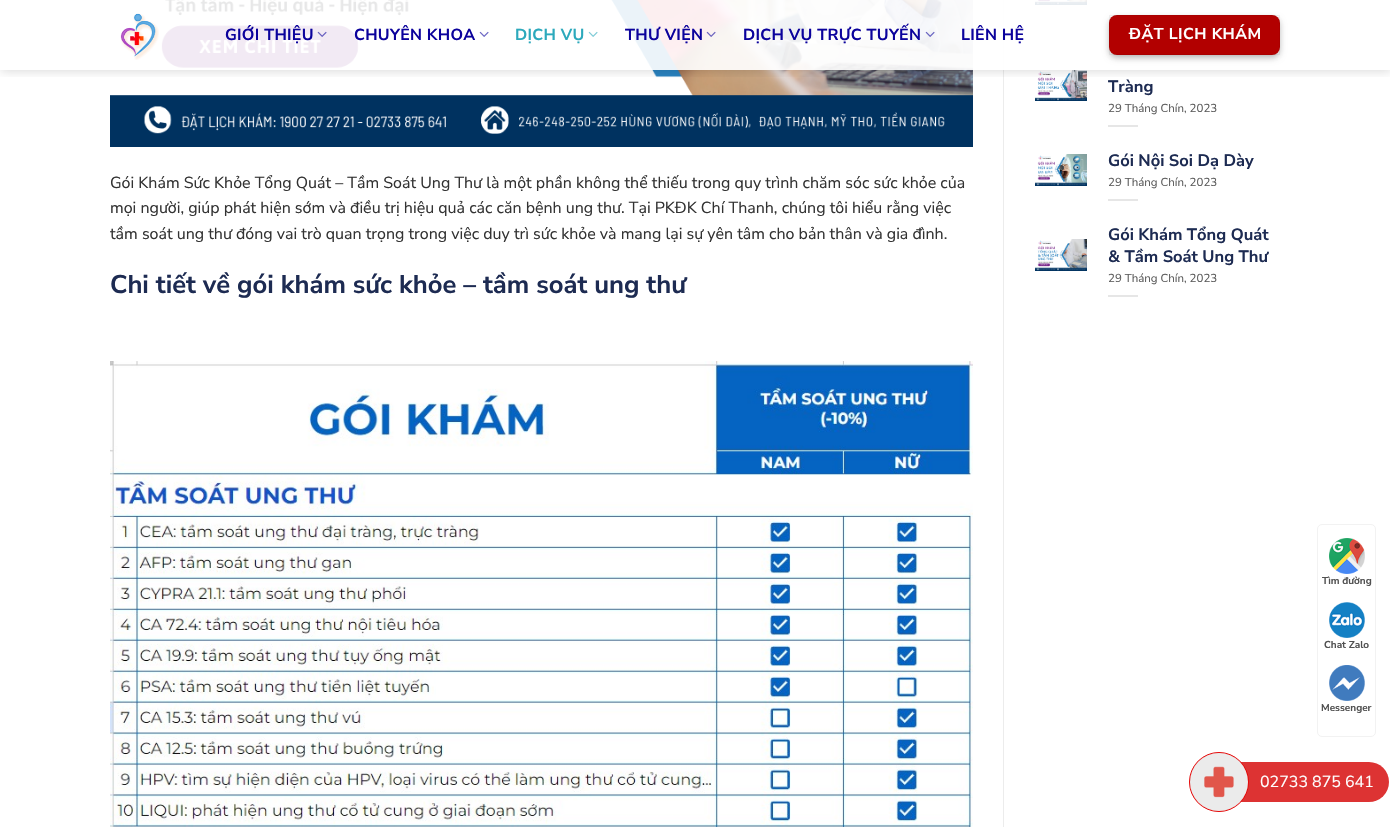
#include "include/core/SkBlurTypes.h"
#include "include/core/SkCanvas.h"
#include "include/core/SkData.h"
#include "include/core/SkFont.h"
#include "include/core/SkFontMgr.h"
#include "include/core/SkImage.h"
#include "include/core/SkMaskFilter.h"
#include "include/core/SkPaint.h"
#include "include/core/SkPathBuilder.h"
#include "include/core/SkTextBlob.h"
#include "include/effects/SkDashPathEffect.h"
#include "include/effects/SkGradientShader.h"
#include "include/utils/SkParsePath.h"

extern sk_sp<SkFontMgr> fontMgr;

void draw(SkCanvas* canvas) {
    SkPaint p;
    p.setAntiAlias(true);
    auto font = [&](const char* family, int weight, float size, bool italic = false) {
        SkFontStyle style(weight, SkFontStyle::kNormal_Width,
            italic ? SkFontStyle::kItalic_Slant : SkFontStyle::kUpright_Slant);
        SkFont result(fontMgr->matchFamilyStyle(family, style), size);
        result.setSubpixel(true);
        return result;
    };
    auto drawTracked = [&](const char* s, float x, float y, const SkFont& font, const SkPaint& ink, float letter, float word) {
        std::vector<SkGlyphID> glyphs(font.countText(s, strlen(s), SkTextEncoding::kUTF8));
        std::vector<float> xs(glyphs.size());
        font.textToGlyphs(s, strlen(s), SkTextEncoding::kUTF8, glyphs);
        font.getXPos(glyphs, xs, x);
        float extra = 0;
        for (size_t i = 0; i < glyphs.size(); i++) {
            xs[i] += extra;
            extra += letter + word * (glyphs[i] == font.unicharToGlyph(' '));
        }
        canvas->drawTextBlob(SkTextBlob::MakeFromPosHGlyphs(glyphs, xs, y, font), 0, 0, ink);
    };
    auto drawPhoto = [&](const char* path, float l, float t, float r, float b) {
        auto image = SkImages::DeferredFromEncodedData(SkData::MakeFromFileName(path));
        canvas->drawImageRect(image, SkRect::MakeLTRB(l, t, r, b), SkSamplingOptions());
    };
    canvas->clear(0xFFFFFFFF);
    drawPhoto("media/7.png", 110, 0, 973, 147);
    p.setColor(0xFFECECEC);
    canvas->drawRect(SkRect::MakeLTRB(1003, 0, 1004, 827), p);
    drawPhoto("media/9.png", 1035, 0, 1087, 5);
    p.setColor(0xFFE6E6E6);
    canvas->drawRect(SkRect::MakeLTRB(1108, 29, 1109, 31), p);
    drawPhoto("media/10.png", 1035, 70, 1087, 101);
    canvas->save();
    canvas->clipRect(SkRect::MakeLTRB(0, 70, 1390, 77));
    p.setColor(0x26000000);
    p.setMaskFilter(SkMaskFilter::MakeBlur(kNormal_SkBlurStyle, 5));
    canvas->drawRect(SkRect::MakeLTRB(1, 1, 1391, 71), p);
    p.setMaskFilter(nullptr);
    canvas->restore();
    p.setColor(0xE6FFFFFF);
    canvas->drawRect(SkRect::MakeLTRB(161, 0, 1109, 70), p);
    drawPhoto("media/1.png", 120, 13, 159, 60);
    auto font1 = font("Nunito Sans", 700, 16);
    p.setColor(0xFF0B029C);
    drawTracked("GIỚI THIỆU", 225, 40, font1, p, 0.3f, 0);
    drawPhoto("media/2.png", 317, 31, 327, 37);
    drawTracked("CHUYÊN KHOA", 354, 40, font1, p, 0.3f, 0);
    drawPhoto("media/3.png", 479, 31, 489, 37);
    p.setColor(0xFF2CA9BC);
    drawTracked("DỊCH VỤ", 515, 40, font1, p, 0.3f, 0);
    drawPhoto("media/4.png", 588, 31, 598, 37);
    p.setColor(0xFF0B029C);
    drawTracked("THƯ VIỆN", 625, 40, font1, p, 0.3f, 0);
    drawPhoto("media/5.png", 706, 31, 716, 37);
    drawTracked("DỊCH VỤ TRỰC TUYẾN", 743, 40, font1, p, 0.3f, 0);
    drawPhoto("media/6.png", 925, 31, 935, 37);
    drawTracked("LIÊN HỆ", 961, 40, font1, p, 0.3f, 0);
    p.setColor(0x3B000000);
    p.setMaskFilter(SkMaskFilter::MakeBlur(kNormal_SkBlurStyle, 3));
    canvas->drawRoundRect(SkRect::MakeLTRB(1109, 18, 1280, 58), 8, 8, p);
    p.setMaskFilter(nullptr);
    p.setColor(0x29000000);
    p.setMaskFilter(SkMaskFilter::MakeBlur(kNormal_SkBlurStyle, 3));
    canvas->drawRoundRect(SkRect::MakeLTRB(1113, 22, 1276, 54), 4, 4, p);
    p.setMaskFilter(nullptr);
    p.setColor(0xFFB20000);
    canvas->drawRoundRect(SkRect::MakeLTRB(1109, 15, 1280, 55), 8, 8, p);
    p.setStyle(SkPaint::kStroke_Style);
    p.setStrokeWidth(1);
    p.setColor(0x0D000000);
    canvas->drawRect(SkRect::MakeLTRB(1109.5f, 15.5f, 1279.5f, 54.5f), p);
    auto font2 = font("Nunito Sans", 700, 15.75f);
    p.setStyle(SkPaint::kFill_Style);
    p.setColor(0xFFFFFFFF);
    drawTracked("ĐẶT LỊCH KHÁM", 1129, 39, font2, p, 0.5f, 0);
    auto font3 = font("Nunito Sans", 400, 16);
    p.setColor(0xFF333333);
    {
        const struct { const char* s; float x, y; } items[] = {
            {"Gói Khám Sức Khỏe Tổng Quát – Tầm Soát Ung Thư là một phần không thể thiếu trong quy trình chăm sóc sức khỏe của", 110, 188},
            {"mọi người, giúp phát hiện sớm và điều trị hiệu quả các căn bệnh ung thư. Tại PKĐK Chí Thanh, chúng tôi hiểu rằng việc", 110, 213},
            {"tầm soát ung thư đóng vai trò quan trọng trong việc duy trì sức khỏe và mang lại sự yên tâm cho bản thân và gia đình.", 110, 239},
        };
        for (auto [s, x, y] : items) {
            canvas->drawString(s, x, y, font3, p);
        }
    }
    auto font4 = font("Nunito Sans", 700, 25.6f);
    p.setColor(0xFF1D2B52);
    canvas->drawString("Chi tiết về gói khám sức khỏe – tầm soát ung thư", 110, 293, font4, p);
    drawPhoto("media/8.png", 110, 361, 973, 827);
    auto font5 = font("Nunito Sans", 700, 16.5f);
    canvas->drawString("Tràng", 1108, 92, font5, p);
    auto font6 = font("Nunito Sans", 400, 11.5f);
    p.setColor(0xFF5C5C5C);
    canvas->drawString("29 Tháng Chín, 2023", 1108, 112, font6, p);
    p.setColor(0xFFE6E6E6);
    canvas->drawRect(SkRect::MakeLTRB(1108, 125, 1138, 127), p);
    drawPhoto("media/11.png", 1035, 154, 1087, 186);
    p.setColor(0xFF1D2B52);
    canvas->drawString("Gói Nội Soi Dạ Dày", 1108, 166, font5, p);
    p.setColor(0xFF5C5C5C);
    canvas->drawString("29 Tháng Chín, 2023", 1108, 186, font6, p);
    p.setColor(0xFFE6E6E6);
    canvas->drawRect(SkRect::MakeLTRB(1108, 199, 1138, 201), p);
    drawPhoto("media/12.png", 1035, 239, 1087, 271);
    p.setColor(0xFF1D2B52);
    canvas->drawString("Gói Khám Tổng Quát", 1108, 240, font5, p);
    canvas->drawString("& Tầm Soát Ung Thư", 1108, 262, font5, p);
    p.setColor(0xFF5C5C5C);
    canvas->drawString("29 Tháng Chín, 2023", 1108, 282, font6, p);
    p.setColor(0xFFE6E6E6);
    canvas->drawRect(SkRect::MakeLTRB(1108, 295, 1138, 297), p);
    p.setStyle(SkPaint::kStroke_Style);
    p.setColor(0xFFF2F2F2);
    canvas->drawRoundRect(SkRect::MakeLTRB(1317.5f, 524.5f, 1375.5f, 736.5f), 4.5f, 4.5f, p);
    drawPhoto("media/13.png", 1329, 538, 1365, 574);
    auto font7 = font("Nunito Sans", 700, 10);
    p.setStyle(SkPaint::kFill_Style);
    p.setColor(0xFF515151);
    canvas->drawString("Tìm đường", 1322, 584, font7, p);
    drawPhoto("media/14.png", 1329, 602, 1365, 638);
    canvas->drawString("Chat Zalo", 1324, 648, font7, p);
    drawPhoto("media/15.png", 1329, 665, 1365, 701);
    canvas->drawString("Messenger", 1321, 711, font7, p);
    p.setColor(0xFFDD3333);
    canvas->drawRoundRect(SkRect::MakeLTRB(1210, 762, 1389, 802), 20, 20, p);
    canvas->drawCircle(1219, 782, 29.5f, p);
    p.setStyle(SkPaint::kStroke_Style);
    p.setColor(0xFFE60808);
    canvas->drawCircle(1219, 782, 29.5f, p);
    drawPhoto("media/16.png", 1190, 753, 1248, 811);
    p.setStyle(SkPaint::kFill_Style);
    p.setColor(0xFFFFFFFF);
    canvas->drawString("02733 875 641", 1260, 787, font3, p);
}
